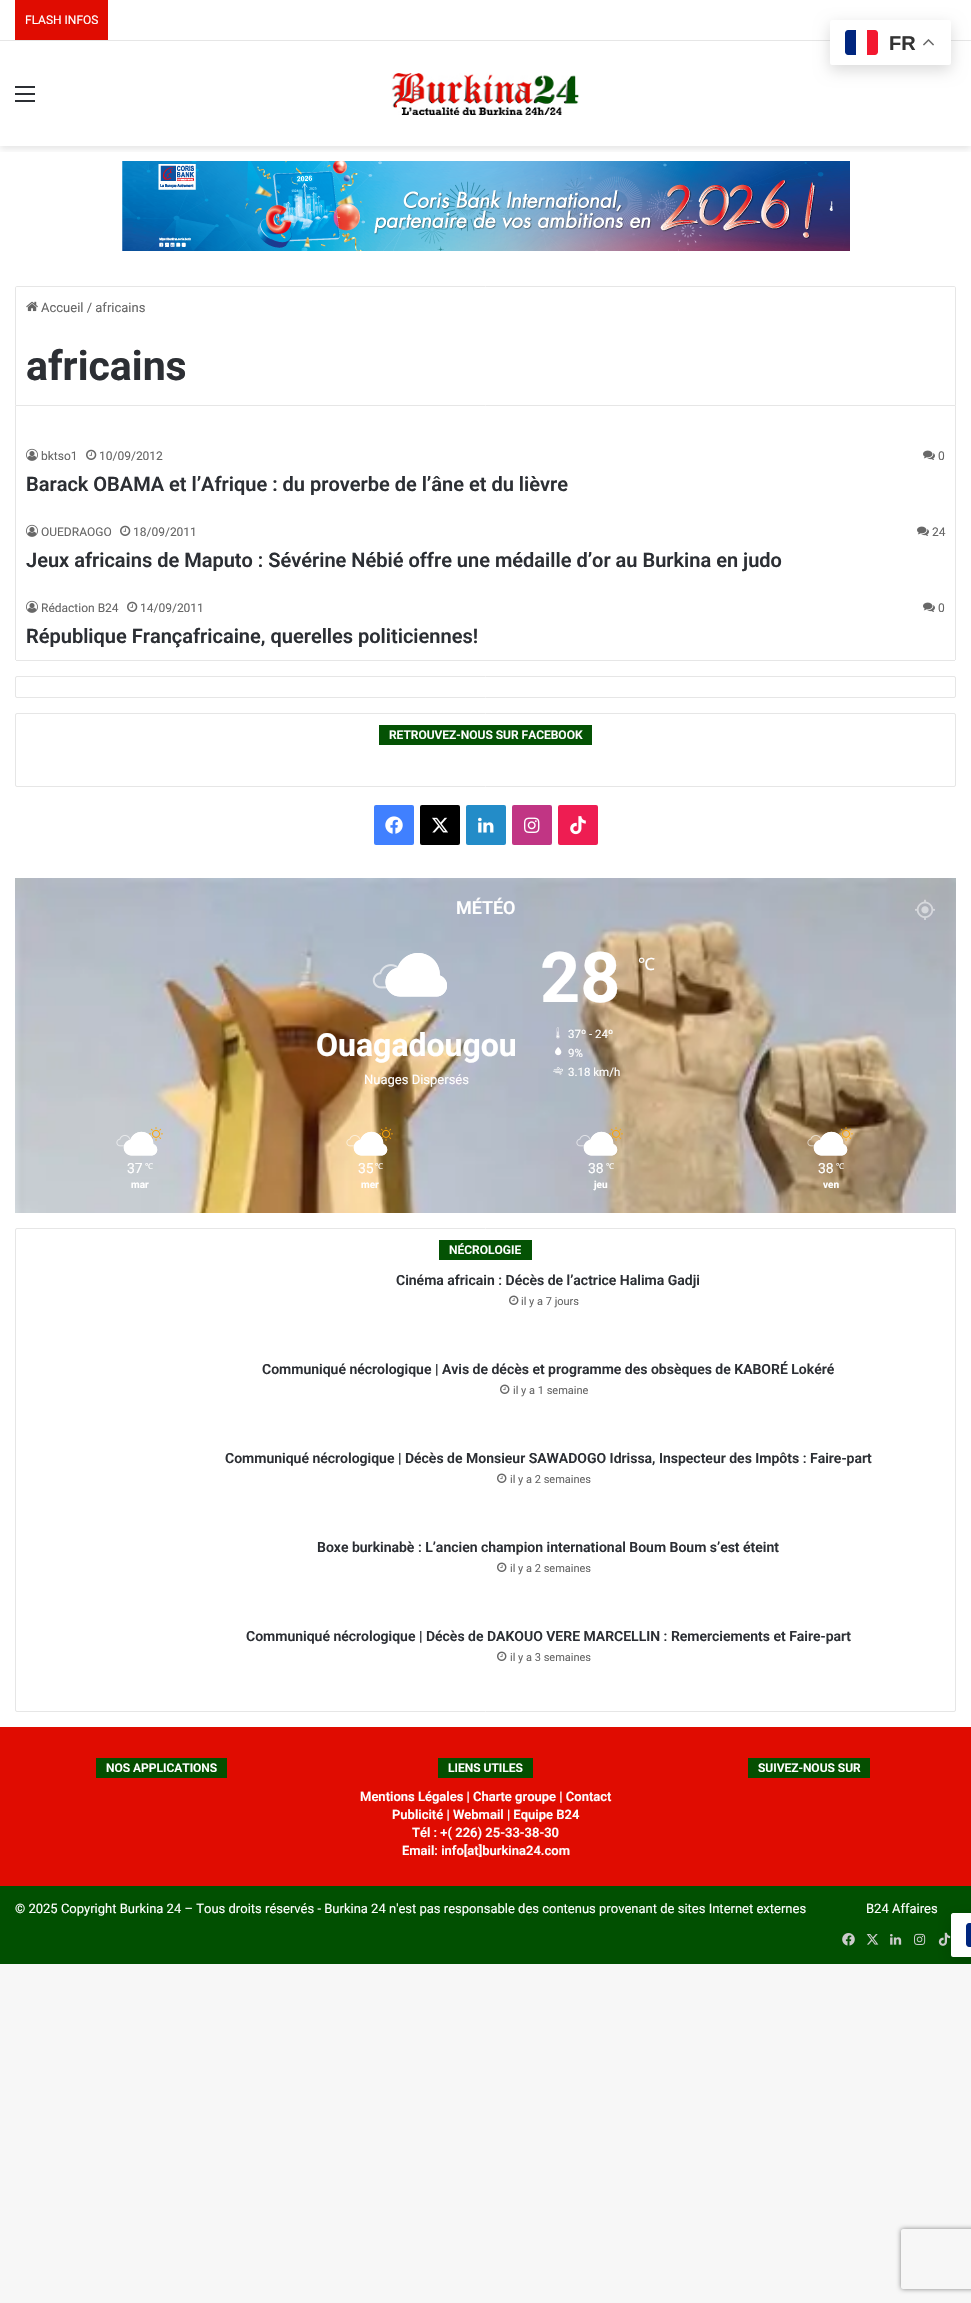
#include "include/core/SkBlurTypes.h"
#include "include/core/SkCanvas.h"
#include "include/core/SkData.h"
#include "include/core/SkFont.h"
#include "include/core/SkFontMgr.h"
#include "include/core/SkImage.h"
#include "include/core/SkMaskFilter.h"
#include "include/core/SkPaint.h"
#include "include/core/SkPathBuilder.h"
#include "include/core/SkTextBlob.h"
#include "include/effects/SkDashPathEffect.h"
#include "include/effects/SkGradientShader.h"
#include "include/utils/SkParsePath.h"

extern sk_sp<SkFontMgr> fontMgr;

void draw(SkCanvas* canvas) {
    SkPaint p;
    p.setAntiAlias(true);
    auto font = [&](const char* family, int weight, float size, bool italic = false) {
        SkFontStyle style(weight, SkFontStyle::kNormal_Width,
            italic ? SkFontStyle::kItalic_Slant : SkFontStyle::kUpright_Slant);
        SkFont result(fontMgr->matchFamilyStyle(family, style), size);
        result.setSubpixel(true);
        return result;
    };
    auto drawPhoto = [&](const char* path, float l, float t, float r, float b) {
        auto image = SkImages::DeferredFromEncodedData(SkData::MakeFromFileName(path));
        canvas->drawImageRect(image, SkRect::MakeLTRB(l, t, r, b), SkSamplingOptions());
    };
    canvas->clear(0xFFF7F7F7);
    p.setColor(0xFFFFFFFF);
    canvas->drawRect(SkRect::MakeLTRB(0, 41, 971, 1727), p);
    canvas->save();
    canvas->clipRect(SkRect::MakeLTRB(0, 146, 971, 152));
    p.setColor(0x1A000000);
    p.setMaskFilter(SkMaskFilter::MakeBlur(kNormal_SkBlurStyle, 3.5f));
    canvas->drawRect(SkRect::MakeLTRB(0, 44, 971, 149), p);
    p.setMaskFilter(nullptr);
    canvas->restore();
    {
        const struct { float l, t, r, b; SkColor color; } items[] = {
            {0, 0, 971, 40, 0xFFFFFFFF},
            {0, 40, 971, 41, 0xFFE6E6E6},
            {15, 0, 108, 40, 0xFFE00C01},
        };
        for (auto [l, t, r, b, color] : items) {
            p.setColor(color);
            canvas->drawRect(SkRect::MakeLTRB(l, t, r, b), p);
        }
    }
    auto font1 = font("Roboto", 400, 12);
    p.setColor(0xFFFFFFFF);
    canvas->drawString("FLASH INFOS", 25, 24, font1, p);
    {
        const struct { float l, t, r, b; SkColor color; } items[] = {
            {15, 93, 35, 95, 0xFF2C2F34},
            {15, 86, 35, 88, 0xFF2C2F34},
            {15, 100, 35, 102, 0xFF2C2F34},
        };
        for (auto [l, t, r, b, color] : items) {
            p.setColor(color);
            canvas->drawRect(SkRect::MakeLTRB(l, t, r, b), p);
        }
    }
    drawPhoto("media/1.png", 391, 73, 579, 115);
    drawPhoto("media/2.png", 122, 161, 850, 251);
    p.setStyle(SkPaint::kStroke_Style);
    p.setStrokeWidth(1);
    p.setColor(0xFFE6E6E6);
    canvas->drawPath(SkPathBuilder().moveTo(17, 286.5f).lineTo(954, 286.5f).cubicTo(955, 286.5f, 955.5f, 287, 955.5f, 288).lineTo(955.5f, 405.5f).lineTo(15.5f, 405.5f).lineTo(15.5f, 288).cubicTo(15.5f, 287, 16, 286.5f, 17, 286.5f).close().detach(), p);
    drawPhoto("media/3.png", 26, 301, 38, 312);
    auto font2 = font("Roboto", 400, 13);
    p.setStyle(SkPaint::kFill_Style);
    p.setColor(0xFF666666);
    canvas->drawString("Accueil / africains", 41, 312, font2, p);
    auto font3 = font("Roboto", 700, 41);
    p.setColor(0xFF2C2F34);
    canvas->drawString("africains", 26, 380, font3, p);
    {
        const struct { float l, t, r, b; SkColor color; } items[] = {
            {955, 406, 956, 660, 0xFFE6E6E6},
            {16, 660, 955, 661, 0xFFE6E6E6},
            {15, 406, 16, 660, 0xFFE6E6E6},
        };
        for (auto [l, t, r, b, color] : items) {
            p.setColor(color);
            canvas->drawRect(SkRect::MakeLTRB(l, t, r, b), p);
        }
    }
    drawPhoto("media/4.png", 26, 448, 38, 461);
    p.setColor(0xFF666666);
    canvas->drawString("bktso1", 41, 460, font1, p);
    drawPhoto("media/5.png", 86, 449, 97, 460);
    canvas->drawString("10/09/2012", 99, 460, font1, p);
    drawPhoto("media/6.png", 923, 450, 935, 460);
    canvas->drawString("0", 938, 460, font1, p);
    auto font4 = font("Roboto", 600, 20);
    p.setColor(0xFF2C2F34);
    canvas->drawString("Barack OBAMA et l’Afrique : du proverbe de l’âne et du lièvre", 26, 491, font4, p);
    drawPhoto("media/4.png", 26, 524, 38, 537);
    p.setColor(0xFF666666);
    canvas->drawString("OUEDRAOGO", 41, 536, font1, p);
    drawPhoto("media/5.png", 120, 525, 131, 536);
    canvas->drawString("18/09/2011", 133, 536, font1, p);
    drawPhoto("media/6.png", 917, 526, 929, 536);
    canvas->drawString("24", 932, 536, font1, p);
    p.setColor(0xFF2C2F34);
    canvas->drawString("Jeux africains de Maputo : Sévérine Nébié offre une médaille d’or au Burkina en judo", 26, 567, font4, p);
    drawPhoto("media/4.png", 26, 600, 38, 613);
    p.setColor(0xFF666666);
    canvas->drawString("Rédaction B24", 41, 612, font1, p);
    drawPhoto("media/5.png", 127, 601, 138, 612);
    canvas->drawString("14/09/2011", 140, 612, font1, p);
    drawPhoto("media/6.png", 923, 602, 935, 612);
    canvas->drawString("0", 938, 612, font1, p);
    p.setColor(0xFF2C2F34);
    canvas->drawString("République Françafricaine, querelles politiciennes!", 26, 643, font4, p);
    p.setStyle(SkPaint::kStroke_Style);
    p.setColor(0xFFE6E6E6);
    canvas->drawRoundRect(SkRect::MakeLTRB(15.5f, 676.5f, 955.5f, 697.5f), 1.5f, 1.5f, p);
    canvas->drawRoundRect(SkRect::MakeLTRB(15.5f, 713.5f, 955.5f, 786.5f), 1.5f, 1.5f, p);
    p.setStyle(SkPaint::kFill_Style);
    p.setColor(0xFF045204);
    canvas->drawRect(SkRect::MakeLTRB(379, 725, 592, 745), p);
    auto font5 = font("Roboto", 600, 12);
    p.setColor(0xFFFFFFFF);
    canvas->drawString("RETROUVEZ-NOUS SUR FACEBOOK", 389, 739, font5, p);
    p.setColor(0xFF4080FF);
    canvas->drawRoundRect(SkRect::MakeLTRB(374, 805, 414, 845), 2, 2, p);
    drawPhoto("media/7.png", 385, 816, 403, 834);
    p.setColor(0xFF000000);
    canvas->drawRoundRect(SkRect::MakeLTRB(420, 805, 460, 845), 2, 2, p);
    drawPhoto("media/8.png", 432, 817, 448, 833);
    p.setColor(0xFF238CC8);
    canvas->drawRoundRect(SkRect::MakeLTRB(466, 805, 506, 845), 2, 2, p);
    drawPhoto("media/9.png", 478, 817, 494, 833);
    p.setColor(0xFFC13584);
    canvas->drawRoundRect(SkRect::MakeLTRB(512, 805, 552, 845), 2, 2, p);
    drawPhoto("media/10.png", 524, 817, 540, 833);
    p.setColor(0xFFEE1D52);
    canvas->drawRoundRect(SkRect::MakeLTRB(558, 805, 598, 845), 2, 2, p);
    drawPhoto("media/11.png", 570, 816, 586, 835);
    drawPhoto("media/12.png", 15, 878, 956, 1213);
    auto font6 = font("Roboto", 600, 18);
    p.setColor(0xFFFFFFFF);
    canvas->drawString("MÉTÉO", 456, 914, font6, p);
    drawPhoto("media/13.png", 915, 899, 935, 920);
    drawPhoto("media/16.png", 372, 964, 399, 989);
    drawPhoto("media/14.png", 385, 953, 447, 997);
    drawPhoto("media/15.png", 385, 953, 447, 997);
    auto font7 = font("Roboto", 700, 32);
    canvas->drawString("Ouagadougou", 316, 1056, font7, p);
    canvas->drawString("Nuages Dispersés", 364, 1084, font2, p);
    auto font8 = font("Roboto", 700, 70);
    canvas->drawString("28", 540, 1002, font8, p);
    auto font9 = font("Noto Sans", 400, 17);
    canvas->drawString("℃", 638, 970, font9, p);
    drawPhoto("media/17.png", 556, 1027, 560, 1039);
    auto font10 = font("Roboto", 400, 11.5f);
    canvas->drawString("37º - 24º", 568, 1038, font10, p);
    drawPhoto("media/18.png", 555, 1047, 562, 1056);
    canvas->drawString("9%", 568, 1057, font10, p);
    drawPhoto("media/19.png", 553, 1067, 563, 1075);
    canvas->drawString("3.18 km/h", 568, 1076, font10, p);
    drawPhoto("media/20.png", 149, 1127, 163, 1141);
    drawPhoto("media/23.png", 116, 1135, 131, 1147);
    drawPhoto("media/21.png", 123, 1131, 158, 1156);
    drawPhoto("media/22.png", 123, 1131, 158, 1156);
    auto font11 = font("Roboto", 400, 14);
    canvas->drawString("37", 127, 1173, font11, p);
    auto font12 = font("Noto Sans", 400, 8);
    canvas->drawString("℃", 145, 1169, font12, p);
    auto font13 = font("Roboto", 700, 10);
    canvas->drawString("mar", 131, 1188, font13, p);
    drawPhoto("media/24.png", 379, 1127, 393, 1141);
    drawPhoto("media/27.png", 346, 1135, 361, 1147);
    drawPhoto("media/25.png", 353, 1131, 388, 1156);
    drawPhoto("media/26.png", 353, 1131, 388, 1156);
    canvas->drawString("35", 358, 1173, font11, p);
    canvas->drawString("℃", 375, 1169, font12, p);
    canvas->drawString("mer", 361, 1188, font13, p);
    drawPhoto("media/28.png", 609, 1127, 623, 1141);
    drawPhoto("media/31.png", 576, 1135, 591, 1147);
    drawPhoto("media/29.png", 583, 1131, 618, 1156);
    drawPhoto("media/30.png", 583, 1131, 618, 1156);
    canvas->drawString("38", 588, 1173, font11, p);
    canvas->drawString("℃", 606, 1169, font12, p);
    canvas->drawString("jeu", 594, 1188, font13, p);
    drawPhoto("media/32.png", 839, 1127, 853, 1141);
    drawPhoto("media/35.png", 807, 1135, 822, 1147);
    drawPhoto("media/33.png", 813, 1131, 848, 1156);
    drawPhoto("media/34.png", 813, 1131, 848, 1156);
    canvas->drawString("38", 818, 1173, font11, p);
    canvas->drawString("℃", 836, 1169, font12, p);
    canvas->drawString("ven", 823, 1188, font13, p);
    p.setStyle(SkPaint::kStroke_Style);
    p.setColor(0xFFE6E6E6);
    canvas->drawRoundRect(SkRect::MakeLTRB(15.5f, 1228.5f, 955.5f, 1711.5f), 1.5f, 1.5f, p);
    p.setStyle(SkPaint::kFill_Style);
    p.setColor(0xFF045204);
    canvas->drawRect(SkRect::MakeLTRB(439, 1240, 532, 1260), p);
    p.setColor(0xFFFFFFFF);
    canvas->drawString("NÉCROLOGIE", 449, 1254, font5, p);
    auto font14 = font("Roboto", 600, 14);
    p.setColor(0xFF2C2F34);
    canvas->drawString("Cinéma africain : Décès de l’actrice Halima Gadji", 396, 1285, font14, p);
    drawPhoto("media/36.png", 509, 1295, 519, 1305);
    auto font15 = font("Roboto", 400, 11);
    p.setColor(0xFF666666);
    canvas->drawString("il y a 7 jours", 521, 1305, font15, p);
    p.setColor(0xFF2C2F34);
    canvas->drawString("Communiqué nécrologique | Avis de décès et programme des obsèques de KABORÉ Lokéré", 262, 1374, font14, p);
    drawPhoto("media/36.png", 500, 1384, 510, 1394);
    p.setColor(0xFF666666);
    canvas->drawString("il y a 1 semaine", 513, 1394, font15, p);
    p.setColor(0xFF2C2F34);
    canvas->drawString("Communiqué nécrologique | Décès de Monsieur SAWADOGO Idrissa, Inspecteur des Impôts : Faire-part", 225, 1463, font14, p);
    drawPhoto("media/36.png", 497, 1473, 507, 1483);
    p.setColor(0xFF666666);
    canvas->drawString("il y a 2 semaines", 510, 1483, font15, p);
    p.setColor(0xFF2C2F34);
    canvas->drawString("Boxe burkinabè : L’ancien champion international Boum Boum s’est éteint", 317, 1552, font14, p);
    drawPhoto("media/36.png", 497, 1562, 507, 1572);
    p.setColor(0xFF666666);
    canvas->drawString("il y a 2 semaines", 510, 1572, font15, p);
    p.setColor(0xFF2C2F34);
    canvas->drawString("Communiqué nécrologique | Décès de DAKOUO VERE MARCELLIN : Remerciements et Faire-part", 246, 1641, font14, p);
    drawPhoto("media/36.png", 497, 1651, 507, 1661);
    p.setColor(0xFF666666);
    canvas->drawString("il y a 3 semaines", 510, 1661, font15, p);
    p.setColor(0xFFE00C01);
    canvas->drawRect(SkRect::MakeLTRB(0, 1727, 971, 1886), p);
    p.setColor(0xFF054F01);
    canvas->drawRect(SkRect::MakeLTRB(96, 1758, 227, 1778), p);
    p.setColor(0xFFFFFFFF);
    canvas->drawString("NOS APPLICATIONS", 106, 1772, font5, p);
    p.setColor(0xFF054F01);
    canvas->drawRect(SkRect::MakeLTRB(438, 1758, 533, 1778), p);
    p.setColor(0xFFFFFFFF);
    canvas->drawString("LIENS UTILES", 448, 1772, font5, p);
    auto font16 = font("Roboto", 600, 13);
    {
        const struct { const char* s; float x, y; } items[] = {
            {"Mentions Légales | Charte groupe | Contact", 360, 1801},
            {"Publicité | Webmail | Equipe B24", 392, 1819},
            {"Tél : +( 226) 25-33-38-30", 412, 1837},
            {"Email: info[at]burkina24.com", 402, 1855},
        };
        for (auto [s, x, y] : items) {
            canvas->drawString(s, x, y, font16, p);
        }
    }
    p.setColor(0xFF054F01);
    canvas->drawRect(SkRect::MakeLTRB(748, 1758, 870, 1778), p);
    p.setColor(0xFFFFFFFF);
    canvas->drawString("SUIVEZ-NOUS SUR", 758, 1772, font5, p);
    p.setColor(0xFF015001);
    canvas->drawRect(SkRect::MakeLTRB(0, 1886, 971, 1964), p);
    p.setColor(0xFFFFFFFF);
    canvas->drawString("© 2025 Copyright Burkina 24 – Tous droits réservés - Burkina 24 n'est pas responsable des contenus provenant de sites Internet externes", 15, 1913, font2, p);
    canvas->drawString("B24 Affaires", 866, 1913, font2, p);
    canvas->save();
    canvas->clipRect(SkRect::MakeLTRB(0, 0, 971, 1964));
    p.setColor(0x26000000);
    p.setMaskFilter(SkMaskFilter::MakeBlur(kNormal_SkBlurStyle, 7.5f));
    canvas->drawRoundRect(SkRect::MakeLTRB(951, 1918, 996, 1962), 2, 2, p);
    p.setMaskFilter(nullptr);
    canvas->restore();
    p.setColor(0xFFFFFFFF);
    canvas->drawPath(SkPathBuilder().moveTo(953, 1913).lineTo(971, 1913).lineTo(971, 1957).lineTo(953, 1957).cubicTo(952, 1957, 951, 1956, 951, 1955).lineTo(951, 1915).cubicTo(951, 1914, 952, 1913, 953, 1913).close().detach(), p);
    p.setColor(0xFF00267F);
    canvas->drawPath(SkPathBuilder().moveTo(969, 1923).lineTo(971, 1923).lineTo(971, 1947).lineTo(969, 1947).cubicTo(967.5f, 1947, 966, 1945.5f, 966, 1944).lineTo(966, 1926).cubicTo(966, 1924.5f, 967.5f, 1923, 969, 1923).close().detach(), p);
    drawPhoto("media/37.png", 842, 1933, 855, 1946);
    drawPhoto("media/38.png", 866, 1934, 879, 1945);
    drawPhoto("media/39.png", 890, 1934, 902, 1945);
    drawPhoto("media/40.png", 914, 1933, 926, 1945);
    drawPhoto("media/41.png", 938, 1932, 951, 1946);
    p.setColor(0x26000000);
    p.setMaskFilter(SkMaskFilter::MakeBlur(kNormal_SkBlurStyle, 7.5f));
    canvas->drawRoundRect(SkRect::MakeLTRB(830, 25, 951, 70), 2, 2, p);
    p.setMaskFilter(nullptr);
    p.setColor(0xFFFFFFFF);
    canvas->drawRoundRect(SkRect::MakeLTRB(830, 20, 951, 65), 2, 2, p);
    p.setColor(0xFF00267F);
    canvas->drawPath(SkPathBuilder().moveTo(848, 30).lineTo(856, 30).lineTo(856, 55).lineTo(848, 55).cubicTo(846.5f, 55, 845, 53.5f, 845, 52).lineTo(845, 33).cubicTo(845, 31.5f, 846.5f, 30, 848, 30).close().detach(), p);
    p.setColor(0xFFF31830);
    canvas->drawPath(SkPathBuilder().moveTo(867, 30).lineTo(875, 30).cubicTo(876.5f, 30, 878, 31.5f, 878, 33).lineTo(878, 52).cubicTo(878, 53.5f, 876.5f, 55, 875, 55).lineTo(867, 55).close().detach(), p);
    auto font17 = font("Liberation Sans", 700, 20);
    p.setColor(0xFF333333);
    canvas->drawString("FR", 889, 50, font17, p);
    drawPhoto("media/42.png", 923, 39, 934, 46);
    canvas->save();
    canvas->clipPath(SkPathBuilder(SkPathFillType::kEvenOdd).moveTo(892, 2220).lineTo(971, 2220).lineTo(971, 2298).lineTo(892, 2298).close().moveTo(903, 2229).lineTo(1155, 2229).cubicTo(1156, 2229, 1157, 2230, 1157, 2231).lineTo(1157, 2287).cubicTo(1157, 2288, 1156, 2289, 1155, 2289).lineTo(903, 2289).cubicTo(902, 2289, 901, 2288, 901, 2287).lineTo(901, 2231).cubicTo(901, 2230, 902, 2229, 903, 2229).close().detach(), true);
    p.setColor(0xFF808080);
    p.setMaskFilter(SkMaskFilter::MakeBlur(kNormal_SkBlurStyle, 2.5f));
    canvas->drawRoundRect(SkRect::MakeLTRB(901, 2229, 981, 2289), 2, 2, p);
    p.setMaskFilter(nullptr);
    canvas->restore();
}
